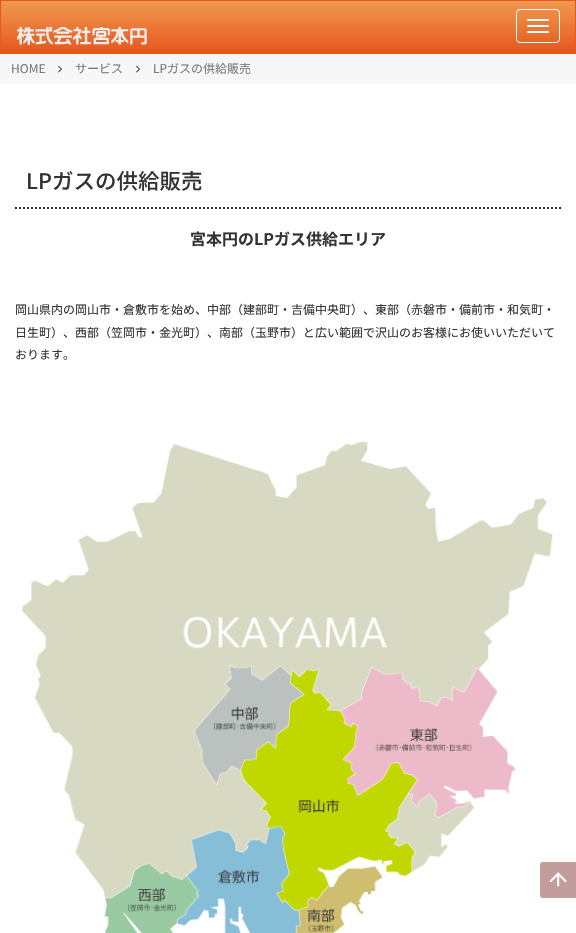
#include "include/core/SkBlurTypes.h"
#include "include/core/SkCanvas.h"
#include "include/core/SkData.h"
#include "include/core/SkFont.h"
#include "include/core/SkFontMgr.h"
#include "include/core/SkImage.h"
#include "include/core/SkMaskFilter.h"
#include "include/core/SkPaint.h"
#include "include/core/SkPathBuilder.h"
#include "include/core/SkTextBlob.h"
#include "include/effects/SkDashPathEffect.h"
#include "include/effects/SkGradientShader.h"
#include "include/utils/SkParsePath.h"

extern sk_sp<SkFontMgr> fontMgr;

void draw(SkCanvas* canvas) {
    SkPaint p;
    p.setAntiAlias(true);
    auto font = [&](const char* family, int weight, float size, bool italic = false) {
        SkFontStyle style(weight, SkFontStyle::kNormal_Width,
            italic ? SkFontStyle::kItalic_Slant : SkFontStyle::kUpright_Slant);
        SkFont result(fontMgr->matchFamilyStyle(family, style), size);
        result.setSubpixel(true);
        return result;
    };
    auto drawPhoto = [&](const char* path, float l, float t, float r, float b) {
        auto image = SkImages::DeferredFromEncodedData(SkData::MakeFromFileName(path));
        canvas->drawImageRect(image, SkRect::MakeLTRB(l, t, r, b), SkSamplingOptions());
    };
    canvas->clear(0xFFFFFFFF);
    {
        const SkColor colors[] = {0xFFF0994E, 0xFFE5571E};
        const float stops[] = {0, 1};
        const SkPoint ends[] = {{288, 1}, {288, 53}};
        p.setShader(SkGradientShader::MakeLinear(ends, colors, stops, 2, SkTileMode::kClamp));
        p.setAlpha(255);
    }
    canvas->drawRect(SkRect::MakeLTRB(1, 1, 575, 53), p);
    p.setStyle(SkPaint::kStroke_Style);
    p.setStrokeWidth(1);
    p.setShader(nullptr);
    p.setColor(0xFFE5571E);
    canvas->drawRect(SkRect::MakeLTRB(0.5f, 0.5f, 575.5f, 53.5f), p);
    drawPhoto("media/1.png", 17, 27, 147, 45);
    p.setColor(0xFFFFFFFF);
    canvas->drawRoundRect(SkRect::MakeLTRB(516.5f, 9.5f, 559.5f, 42.5f), 3.5f, 3.5f, p);
    p.setStyle(SkPaint::kFill_Style);
    canvas->drawRoundRect(SkRect::MakeLTRB(527, 19, 549, 21), 1, 1, p);
    canvas->drawRoundRect(SkRect::MakeLTRB(527, 25, 549, 27), 1, 1, p);
    canvas->drawRoundRect(SkRect::MakeLTRB(527, 31, 549, 33), 1, 1, p);
    p.setColor(0xFFF7F7F7);
    canvas->drawRect(SkRect::MakeLTRB(0, 54, 576, 84), p);
    auto font1 = font("Noto Sans JP", 400, 12);
    p.setColor(0xFF777777);
    canvas->drawString("HOME", 11, 73, font1, p);
    drawPhoto("media/2.png", 58, 65, 62, 73);
    canvas->drawString("サービス", 75, 73, font1, p);
    drawPhoto("media/2.png", 136, 65, 140, 73);
    canvas->drawString("LPガスの供給販売", 153, 73, font1, p);
    p.setStyle(SkPaint::kStroke_Style);
    p.setStrokeWidth(2);
    p.setColor(0xFF333333);
    p.setPathEffect(SkDashPathEffect::Make({{2, 2}}, 0));
    canvas->drawPath(SkPathBuilder().moveTo(15, 208).lineTo(561, 208).detach(), p);
    p.setPathEffect(nullptr);
    auto font2 = font("Noto Sans JP", 500, 21.5f);
    p.setStyle(SkPaint::kFill_Style);
    canvas->drawString("LPガスの供給販売", 26, 189, font2, p);
    auto font3 = font("Noto Sans JP", 700, 16);
    canvas->drawString("宮本円のLPガス供給エリア", 190, 245, font3, p);
    {
        const struct { const char* s; float x, y; } items[] = {
            {"岡山県内の岡山市・倉敷市を始め、中部（建部町・吉備中央町）、東部（赤磐市・備前市・和気町・", 15, 314},
            {"日生町）、西部（笠岡市・金光町）、南部（玉野市）と広い範囲で沢山のお客様にお使いいただいて", 15, 337},
            {"おります。", 15, 359},
        };
        for (auto [s, x, y] : items) {
            canvas->drawString(s, x, y, font1, p);
        }
    }
    drawPhoto("media/3.png", 22, 441, 553, 933);
    drawPhoto("media/4.png", 540, 862, 576, 898);
}
